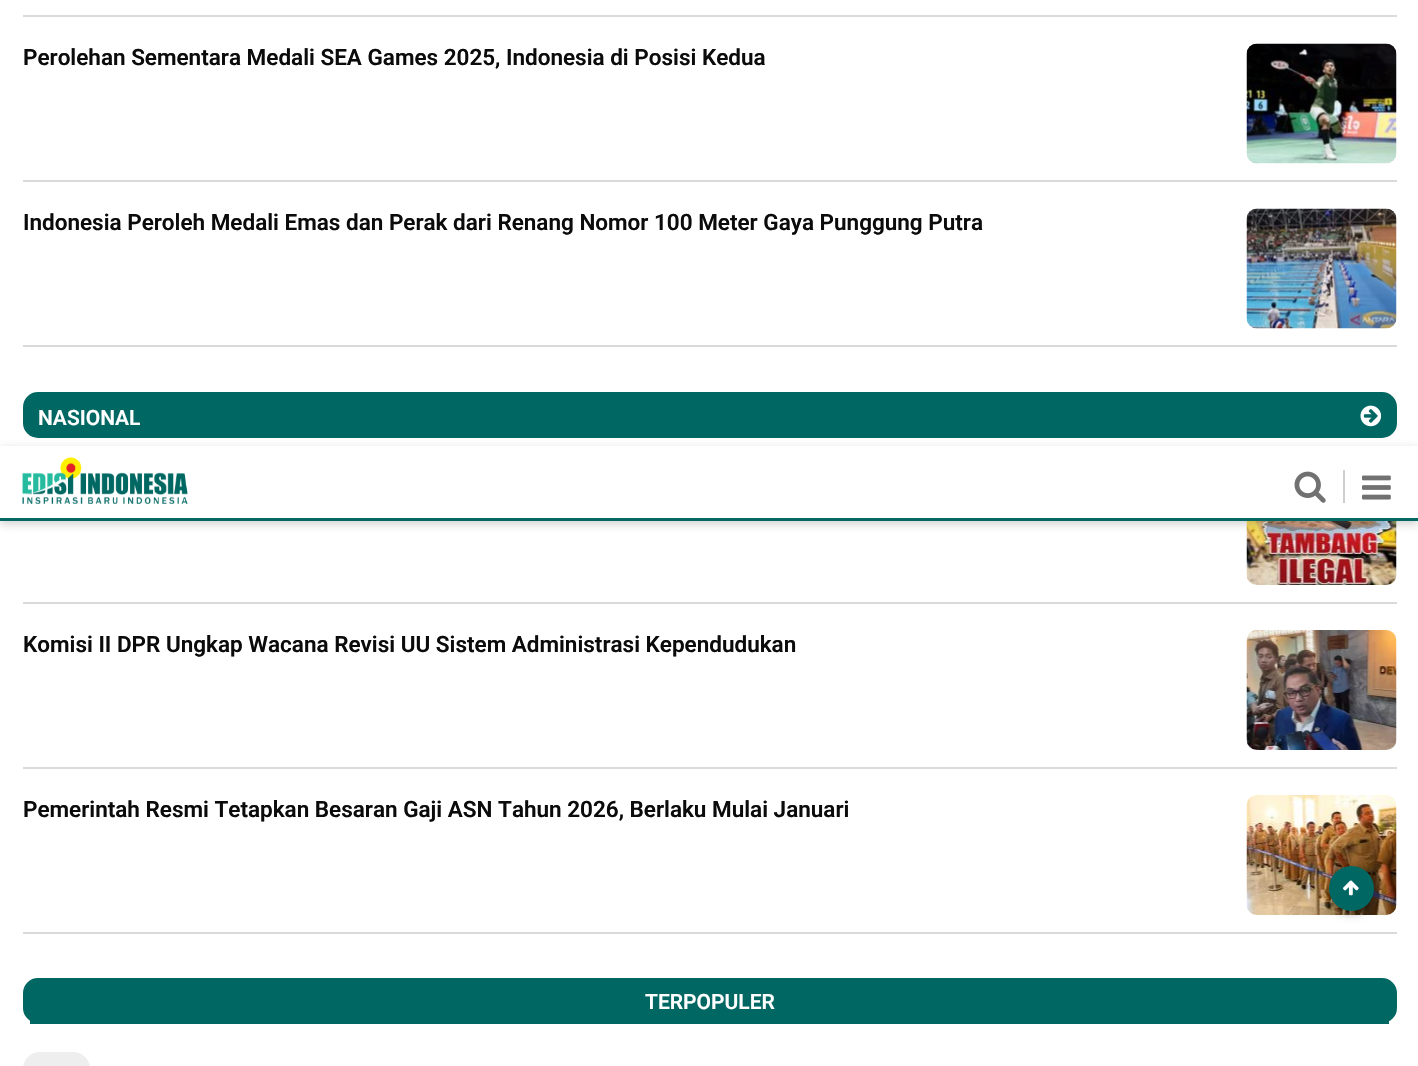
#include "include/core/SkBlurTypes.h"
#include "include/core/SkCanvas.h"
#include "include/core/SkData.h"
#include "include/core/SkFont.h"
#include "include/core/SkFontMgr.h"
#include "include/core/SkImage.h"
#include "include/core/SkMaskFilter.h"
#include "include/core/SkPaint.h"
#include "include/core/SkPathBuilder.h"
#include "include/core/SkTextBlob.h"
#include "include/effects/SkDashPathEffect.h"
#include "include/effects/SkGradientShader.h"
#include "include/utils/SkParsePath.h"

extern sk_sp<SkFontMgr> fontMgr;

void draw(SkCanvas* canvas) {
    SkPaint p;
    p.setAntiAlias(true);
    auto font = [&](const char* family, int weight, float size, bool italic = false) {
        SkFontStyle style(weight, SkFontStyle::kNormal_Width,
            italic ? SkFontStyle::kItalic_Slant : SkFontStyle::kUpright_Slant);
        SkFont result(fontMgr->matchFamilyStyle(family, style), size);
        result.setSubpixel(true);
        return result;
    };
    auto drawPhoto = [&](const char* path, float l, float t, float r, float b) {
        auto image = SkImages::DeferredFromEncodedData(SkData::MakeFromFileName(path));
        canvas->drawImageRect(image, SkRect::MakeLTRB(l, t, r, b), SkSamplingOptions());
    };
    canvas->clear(0xFFFFFFFF);
    p.setColor(0xFFDADADA);
    canvas->drawRect(SkRect::MakeLTRB(23, 15, 1397, 17), p);
    canvas->drawRect(SkRect::MakeLTRB(23, 180, 1397, 182), p);
    auto font1 = font("Roboto", 600, 22.5f);
    p.setColor(0xFF0B0B0B);
    canvas->drawString("Perolehan Sementara Medali SEA Games 2025, Indonesia di Posisi Kedua", 23, 65, font1, p);
    drawPhoto("media/1.png", 1246, 43, 1397, 164);
    p.setColor(0xFFDADADA);
    canvas->drawRect(SkRect::MakeLTRB(23, 345, 1397, 347), p);
    p.setColor(0xFF0B0B0B);
    canvas->drawString("Indonesia Peroleh Medali Emas dan Perak dari Renang Nomor 100 Meter Gaya Punggung Putra", 23, 230, font1, p);
    drawPhoto("media/2.png", 1246, 208, 1397, 329);
    p.setColor(0xFF006763);
    canvas->drawRoundRect(SkRect::MakeLTRB(23, 392, 1397, 438), 15, 15, p);
    auto font2 = font("Roboto", 600, 21);
    p.setColor(0xFFFFFFFF);
    canvas->drawString("NASIONAL", 38, 425, font2, p);
    drawPhoto("media/3.png", 1360, 405, 1382, 427);
    p.setColor(0xFFDADADA);
    canvas->drawRect(SkRect::MakeLTRB(23, 602, 1397, 604), p);
    drawPhoto("media/4.png", 1246, 521, 1397, 585);
    canvas->drawRect(SkRect::MakeLTRB(23, 767, 1397, 769), p);
    p.setColor(0xFF0B0B0B);
    canvas->drawString("Komisi II DPR Ungkap Wacana Revisi UU Sistem Administrasi Kependudukan", 23, 652, font1, p);
    drawPhoto("media/5.png", 1246, 630, 1397, 750);
    p.setColor(0xFFDADADA);
    canvas->drawRect(SkRect::MakeLTRB(23, 932, 1397, 934), p);
    p.setColor(0xFF0B0B0B);
    canvas->drawString("Pemerintah Resmi Tetapkan Besaran Gaji ASN Tahun 2026, Berlaku Mulai Januari", 23, 817, font1, p);
    drawPhoto("media/6.png", 1246, 795, 1397, 915);
    p.setColor(0xFF006763);
    canvas->drawRoundRect(SkRect::MakeLTRB(23, 978, 1397, 1023), 15, 15, p);
    canvas->drawRect(SkRect::MakeLTRB(30, 1020, 1389, 1024), p);
    p.setColor(0xFFFFFFFF);
    canvas->drawString("TERPOPULER", 645, 1009, font2, p);
    p.setColor(0xFFEEEEEE);
    canvas->drawRoundRect(SkRect::MakeLTRB(23, 1052, 90, 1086), 20, 20, p);
    p.setColor(0x4D646464);
    p.setMaskFilter(SkMaskFilter::MakeBlur(kNormal_SkBlurStyle, 4.5f));
    canvas->drawRect(SkRect::MakeLTRB(0, 449, 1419, 524), p);
    p.setMaskFilter(nullptr);
    p.setColor(0xFFFFFFFF);
    canvas->drawRect(SkRect::MakeLTRB(0, 446, 1418, 518), p);
    p.setColor(0xFF056662);
    canvas->drawRect(SkRect::MakeLTRB(0, 518, 1418, 521), p);
    drawPhoto("media/7.png", 22, 457, 188, 504);
    p.setColor(0xFFD2CDCD);
    canvas->drawRect(SkRect::MakeLTRB(1343, 470, 1345, 503), p);
    drawPhoto("media/8.png", 1294, 471, 1326, 503);
    drawPhoto("media/9.png", 1362, 475, 1391, 500);
    p.setColor(0x4D000000);
    p.setMaskFilter(SkMaskFilter::MakeBlur(kNormal_SkBlurStyle, 4));
    canvas->drawRoundRect(SkRect::MakeLTRB(1329, 869, 1374, 914), 22.5f, 22.5f, p);
    p.setMaskFilter(nullptr);
    p.setColor(0xFF006763);
    canvas->drawCircle(1351.5f, 888.5f, 22.5f, p);
    drawPhoto("media/10.png", 1343, 880, 1359, 896);
}
